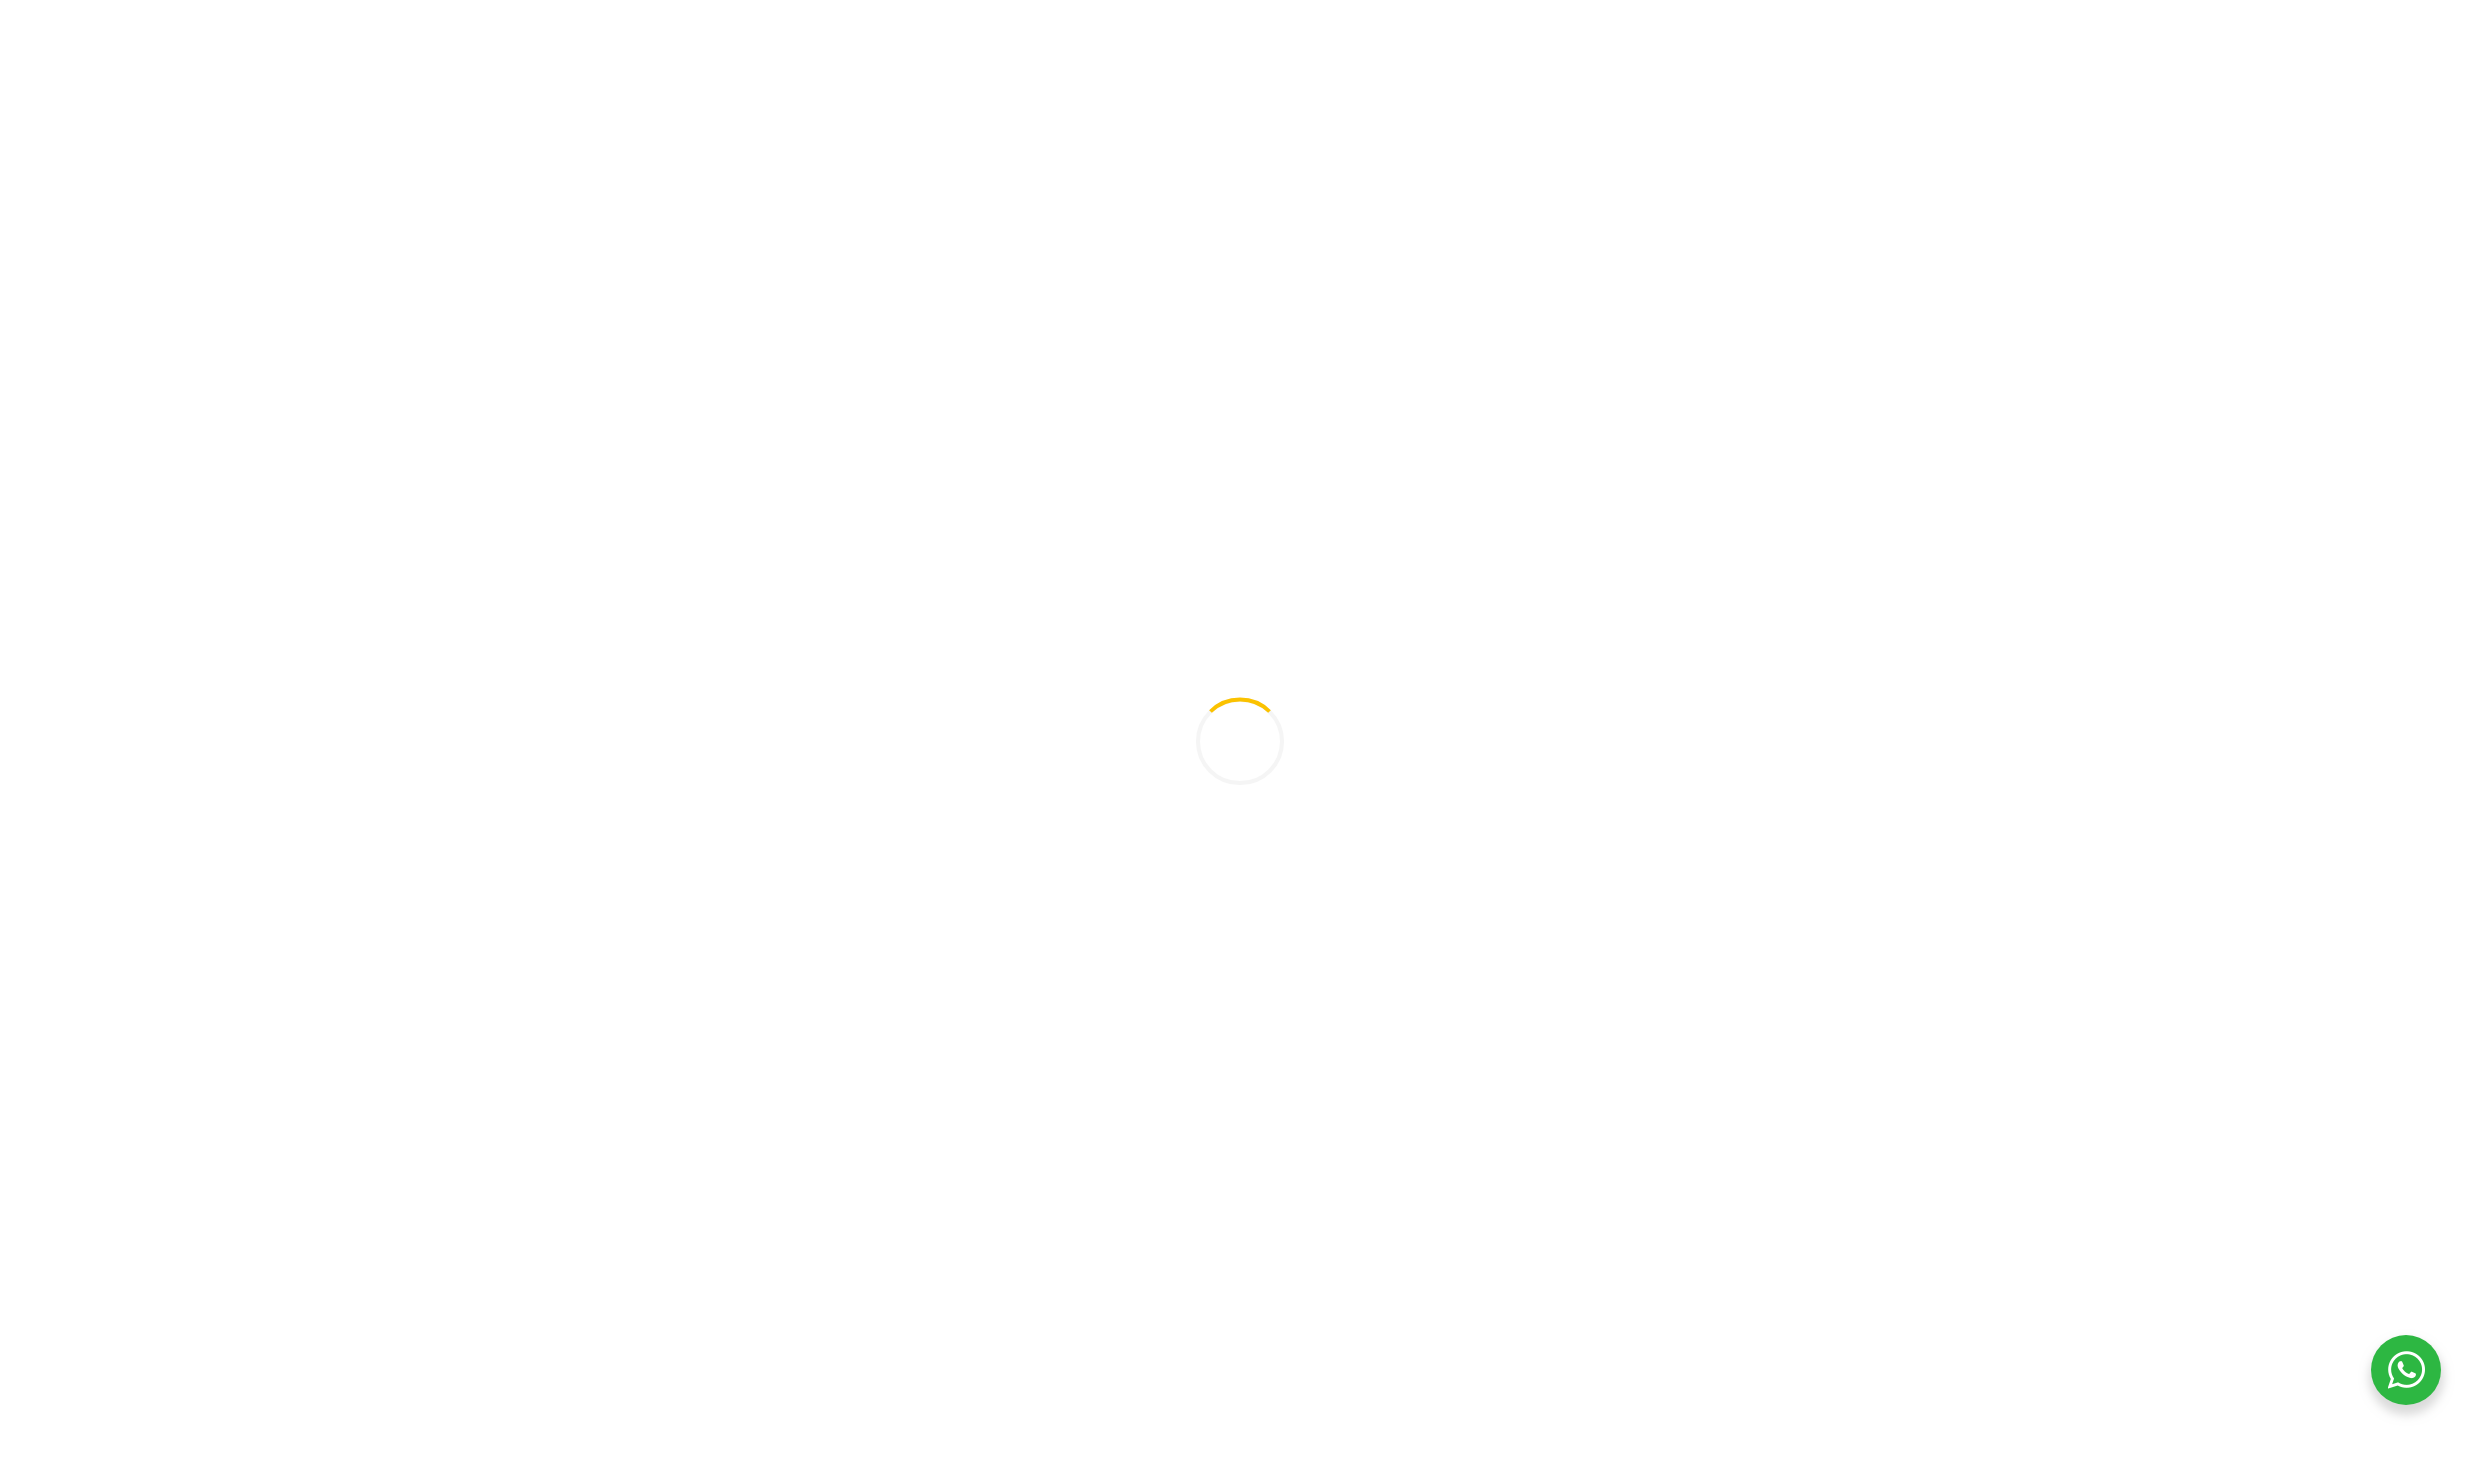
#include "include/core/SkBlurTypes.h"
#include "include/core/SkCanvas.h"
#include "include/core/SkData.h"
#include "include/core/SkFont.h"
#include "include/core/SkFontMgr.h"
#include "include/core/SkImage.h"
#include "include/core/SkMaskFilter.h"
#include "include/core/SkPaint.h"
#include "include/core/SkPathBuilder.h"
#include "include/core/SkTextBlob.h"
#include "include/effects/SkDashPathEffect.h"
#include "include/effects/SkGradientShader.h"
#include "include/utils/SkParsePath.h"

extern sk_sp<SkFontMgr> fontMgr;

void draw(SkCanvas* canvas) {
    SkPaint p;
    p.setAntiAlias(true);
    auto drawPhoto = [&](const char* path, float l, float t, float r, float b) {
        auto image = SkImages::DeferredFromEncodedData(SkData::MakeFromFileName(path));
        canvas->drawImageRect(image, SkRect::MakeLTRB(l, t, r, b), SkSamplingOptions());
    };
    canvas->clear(0xFFFFFFFF);
    p.setStyle(SkPaint::kStroke_Style);
    p.setStrokeWidth(4);
    p.setColor(0xFFF5F5F5);
    canvas->drawRoundRect(SkRect::MakeLTRB(1198, 700, 1282, 783), 41.5f, 41.5f, p);
    p.setStrokeWidth(3.8f);
    p.setColor(0xFFFBC200);
    canvas->drawPath(SkPathBuilder().moveTo(1210.5f, 711.5f).cubicTo(1226.5f, 695.5f, 1253.5f, 695.5f, 1269.5f, 711.5f).detach(), p);
    p.setStyle(SkPaint::kFill_Style);
    p.setColor(0x24000000);
    p.setMaskFilter(SkMaskFilter::MakeBlur(kNormal_SkBlurStyle, 5));
    canvas->drawRoundRect(SkRect::MakeLTRB(2369, 1340, 2444, 1415), 37.5f, 37.5f, p);
    p.setMaskFilter(nullptr);
    p.setColor(0xFF2DB742);
    canvas->drawCircle(2406, 1370, 35, p);
    drawPhoto("media/1.png", 2388, 1351, 2425, 1389);
}
